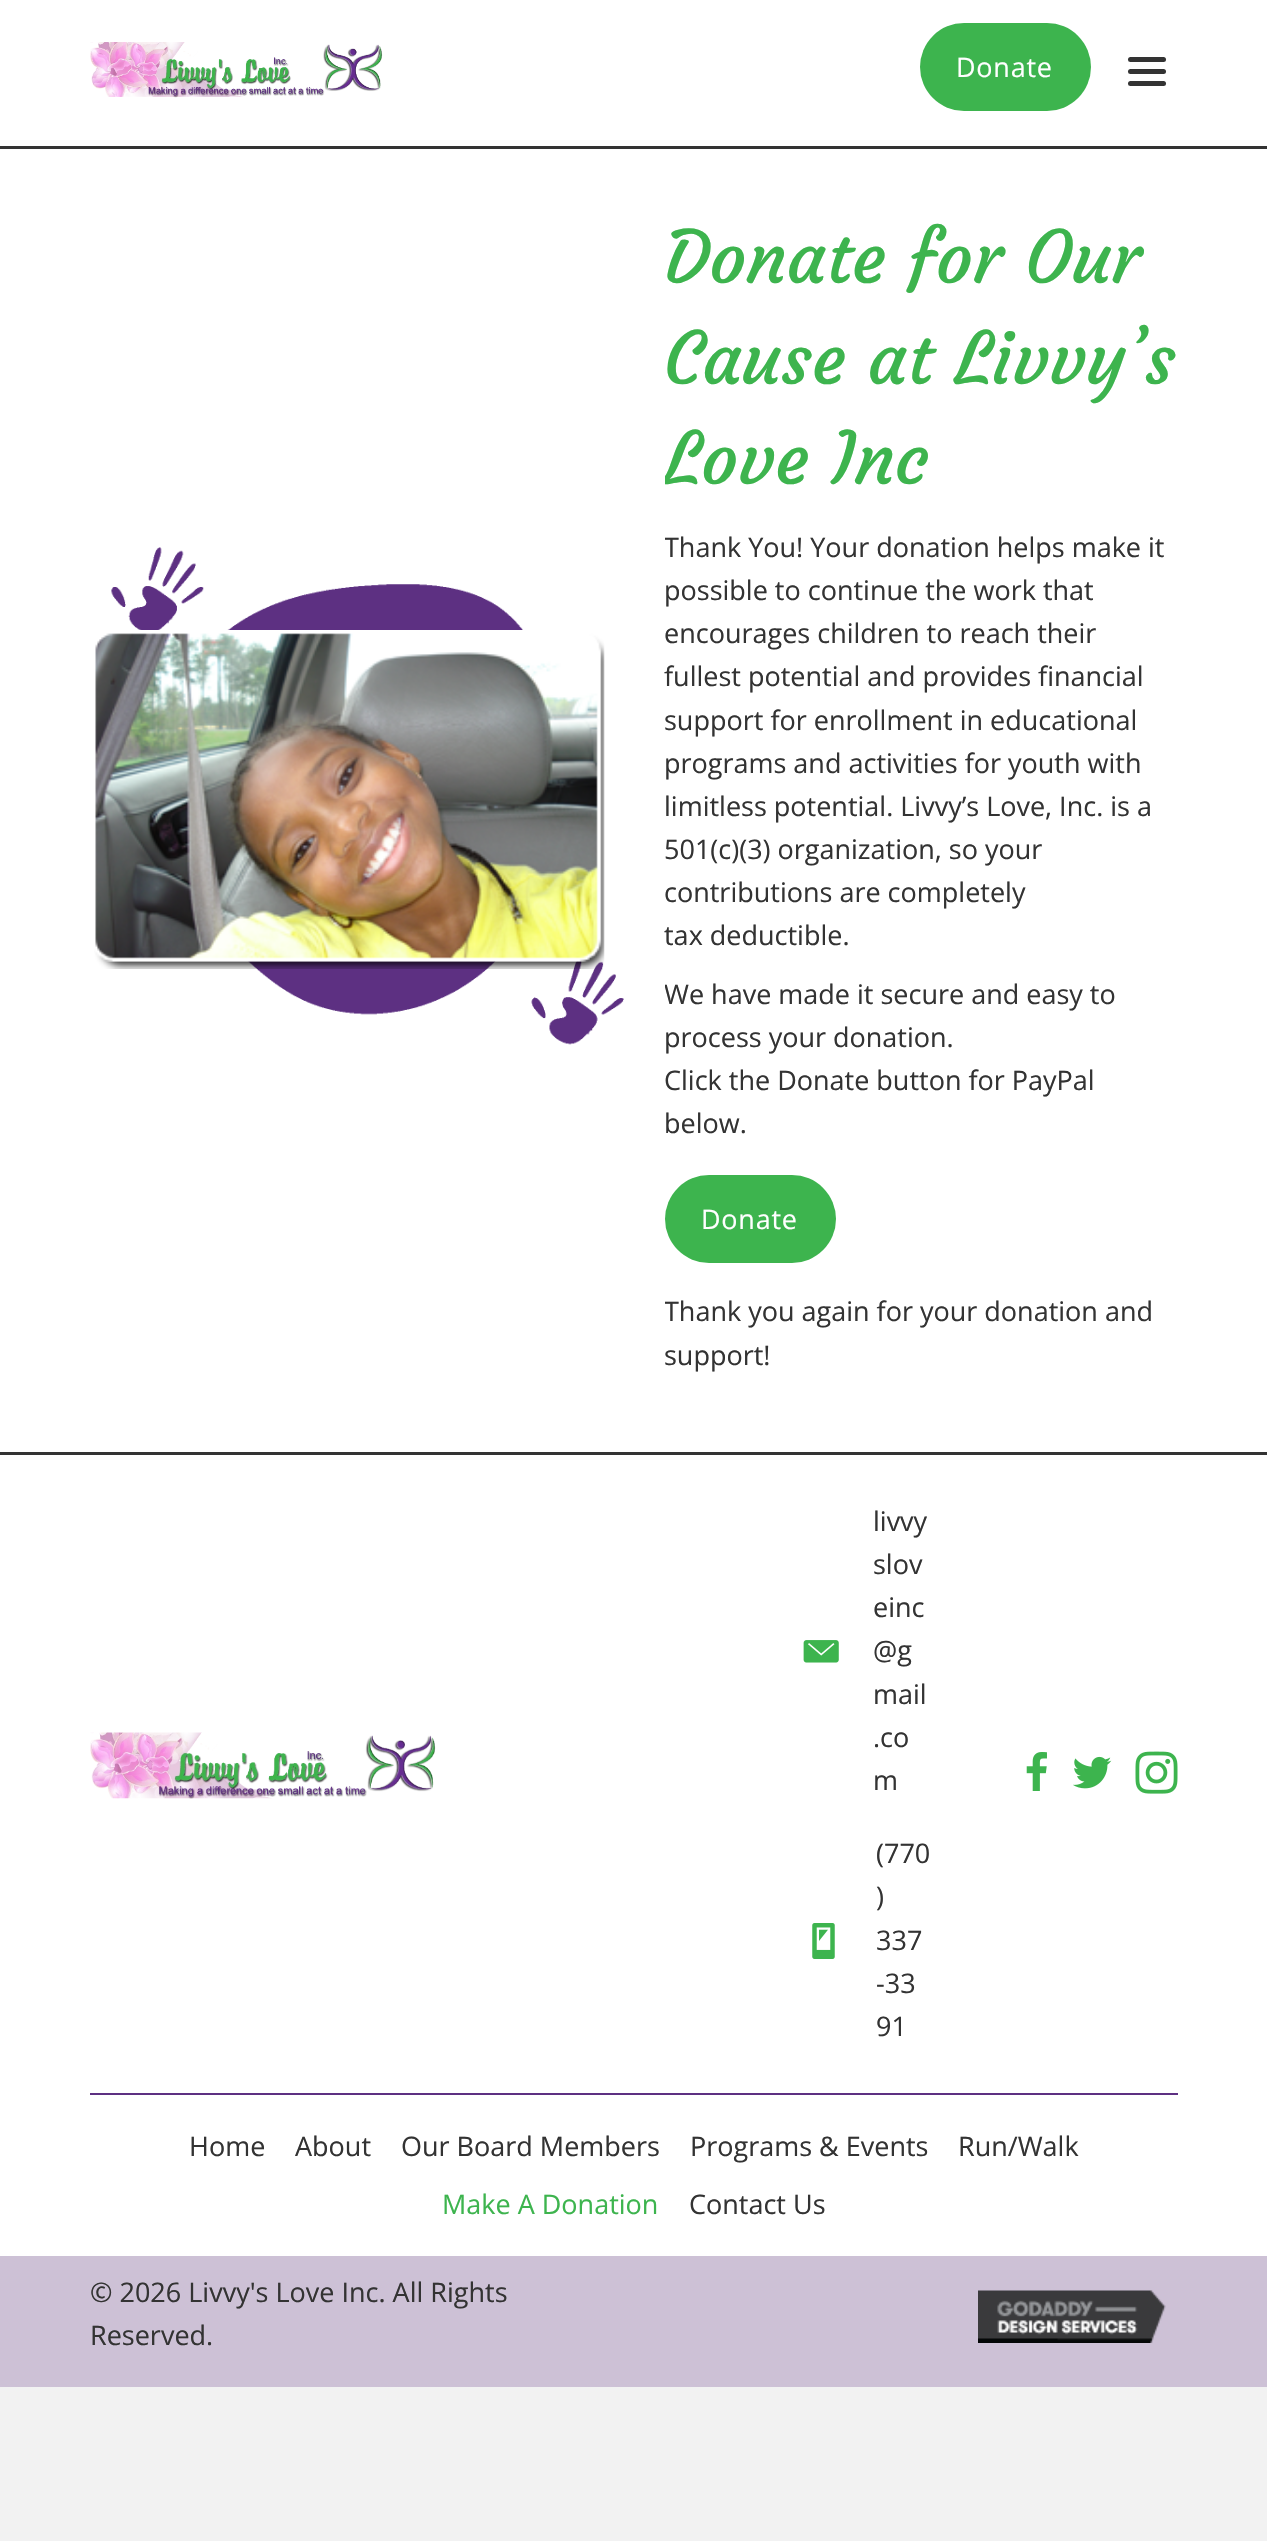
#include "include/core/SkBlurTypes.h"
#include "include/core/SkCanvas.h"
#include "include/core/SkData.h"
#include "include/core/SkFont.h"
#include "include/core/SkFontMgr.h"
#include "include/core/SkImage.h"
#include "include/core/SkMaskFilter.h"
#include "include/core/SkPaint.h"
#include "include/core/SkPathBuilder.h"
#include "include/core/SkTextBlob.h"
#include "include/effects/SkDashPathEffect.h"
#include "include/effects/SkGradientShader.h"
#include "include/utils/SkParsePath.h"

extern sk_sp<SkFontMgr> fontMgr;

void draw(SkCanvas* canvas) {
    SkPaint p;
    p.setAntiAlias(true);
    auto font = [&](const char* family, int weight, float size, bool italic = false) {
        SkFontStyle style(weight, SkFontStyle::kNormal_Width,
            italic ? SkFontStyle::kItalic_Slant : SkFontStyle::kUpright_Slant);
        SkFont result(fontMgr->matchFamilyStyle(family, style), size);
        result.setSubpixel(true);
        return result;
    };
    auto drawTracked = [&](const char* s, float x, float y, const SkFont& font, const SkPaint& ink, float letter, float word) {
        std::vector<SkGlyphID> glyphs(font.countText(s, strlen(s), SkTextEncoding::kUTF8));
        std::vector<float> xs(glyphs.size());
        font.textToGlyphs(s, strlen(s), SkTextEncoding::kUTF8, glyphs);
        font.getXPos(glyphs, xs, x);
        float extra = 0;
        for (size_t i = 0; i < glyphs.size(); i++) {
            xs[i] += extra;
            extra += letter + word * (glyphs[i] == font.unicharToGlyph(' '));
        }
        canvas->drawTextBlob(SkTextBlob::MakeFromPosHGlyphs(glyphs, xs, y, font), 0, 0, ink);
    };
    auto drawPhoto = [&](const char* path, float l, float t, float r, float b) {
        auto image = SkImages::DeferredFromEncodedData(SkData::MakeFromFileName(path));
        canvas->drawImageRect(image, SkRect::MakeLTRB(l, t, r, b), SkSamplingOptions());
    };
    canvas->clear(0xFFF2F2F2);
    p.setColor(0xFFFFFFFF);
    canvas->drawRect(SkRect::MakeLTRB(0, 0, 1267, 146), p);
    p.setColor(0xFF333333);
    canvas->drawRect(SkRect::MakeLTRB(0, 146, 1267, 149), p);
    drawPhoto("media/1.png", 90, 42, 383, 98);
    p.setColor(0xFF3DB44E);
    canvas->drawRoundRect(SkRect::MakeLTRB(920, 23, 1091, 111), 44, 44, p);
    auto font1 = font("Open Sans", 400, 27);
    p.setColor(0xFFFFFFFF);
    drawTracked("Donate", 956, 77, font1, p, 0.75f, 0);
    p.setColor(0xFF333333);
    canvas->drawRoundRect(SkRect::MakeLTRB(1128, 69, 1166, 74), 2.5f, 2.5f, p);
    canvas->drawRoundRect(SkRect::MakeLTRB(1128, 57, 1166, 62), 2.5f, 2.5f, p);
    canvas->drawRoundRect(SkRect::MakeLTRB(1128, 81, 1166, 86), 2.5f, 2.5f, p);
    p.setColor(0xFFFFFFFF);
    canvas->drawRect(SkRect::MakeLTRB(0, 149, 1267, 1452), p);
    drawPhoto("media/2.png", 111, 547, 624, 1045);
    drawPhoto("media/3.png", 94, 630, 605, 969);
    auto font2 = font("Courgette", 400, 72);
    p.setColor(0xFF3DB44E);
    canvas->drawString("Donate for Our", 664, 283, font2, p);
    canvas->drawString("Cause at Livvy’s", 664, 384, font2, p);
    canvas->save();
    canvas->clipRect(SkRect::MakeLTRB(665, 194, 1178, 1145));
    canvas->drawString("Love Inc", 664, 484, font2, p);
    p.setColor(0xFF333333);
    canvas->drawString("Thank You! Your donation helps make it", 664, 557, font1, p);
    canvas->restore();
    {
        const struct { const char* s; float x, y; } items[] = {
            {"possible to continue the work that", 664, 600},
            {"encourages children to reach their", 664, 643},
            {"fullest potential and provides financial", 664, 686},
            {"support for enrollment in educational", 664, 730},
            {"programs and activities for youth with", 664, 773},
            {"limitless potential. Livvy’s Love, Inc. is a", 664, 816},
            {"501(c)(3) organization, so your", 664, 859},
            {"contributions are completely", 664, 902},
            {"tax deductible.", 664, 945},
        };
        for (auto [s, x, y] : items) {
            canvas->drawString(s, x, y, font1, p);
        }
    }
    canvas->save();
    canvas->clipRect(SkRect::MakeLTRB(665, 194, 1178, 1145));
    canvas->drawString("We have made it secure and easy to", 664, 1004, font1, p);
    canvas->restore();
    {
        const struct { const char* s; float x, y; } items[] = {
            {"process your donation.", 664, 1047},
            {"Click the Donate button for PayPal", 664, 1090},
            {"below.", 664, 1133},
        };
        for (auto [s, x, y] : items) {
            canvas->drawString(s, x, y, font1, p);
        }
    }
    p.setColor(0xFF3DB44E);
    canvas->drawRoundRect(SkRect::MakeLTRB(665, 1175, 836, 1263), 44, 44, p);
    p.setColor(0xFFFFFFFF);
    drawTracked("Donate", 701, 1229, font1, p, 0.75f, 0);
    canvas->save();
    canvas->clipRect(SkRect::MakeLTRB(665, 1290, 1178, 1377));
    p.setColor(0xFF333333);
    canvas->drawString("Thank you again for your donation and", 664, 1321, font1, p);
    canvas->restore();
    canvas->drawString("support!", 664, 1365, font1, p);
    p.setColor(0xFFFFFFFF);
    canvas->drawRect(SkRect::MakeLTRB(0, 1455, 1267, 2256), p);
    p.setColor(0xFF333333);
    canvas->drawRect(SkRect::MakeLTRB(0, 1452, 1267, 1455), p);
    drawPhoto("media/4.png", 90, 1732, 436, 1799);
    drawPhoto("media/5.png", 803, 1640, 839, 1663);
    {
        const struct { const char* s; float x, y; } items[] = {
            {"livvy", 873, 1531},
            {"slov", 873, 1574},
            {"einc", 873, 1617},
            {"@g", 873, 1660},
            {"mail", 873, 1704},
            {".co", 873, 1747},
            {"m", 873, 1790},
        };
        for (auto [s, x, y] : items) {
            canvas->drawString(s, x, y, font1, p);
        }
    }
    drawPhoto("media/6.png", 812, 1923, 835, 1959);
    {
        const struct { const char* s; float x, y; } items[] = {
            {"(770", 876, 1863},
            {")", 876, 1906},
            {"337", 876, 1950},
            {"-33", 876, 1993},
            {"91", 876, 2036},
        };
        for (auto [s, x, y] : items) {
            canvas->drawString(s, x, y, font1, p);
        }
    }
    drawPhoto("media/7.png", 1026, 1752, 1047, 1791);
    drawPhoto("media/8.png", 1073, 1756, 1112, 1789);
    drawPhoto("media/9.png", 1135, 1751, 1178, 1794);
    p.setColor(0xFF5D3082);
    canvas->drawRect(SkRect::MakeLTRB(90, 2093, 1178, 2095), p);
    p.setColor(0xFF333333);
    {
        const struct { const char* s; float x, y; } items[] = {
            {"Home", 189, 2156},
            {"About", 295, 2156},
            {"Our Board Members", 401, 2156},
            {"Programs & Events", 690, 2156},
            {"Run/Walk", 958, 2156},
        };
        for (auto [s, x, y] : items) {
            canvas->drawString(s, x, y, font1, p);
        }
    }
    p.setColor(0xFF3DB44E);
    canvas->drawString("Make A Donation", 442, 2214, font1, p);
    p.setColor(0xFF333333);
    canvas->drawString("Contact Us", 689, 2214, font1, p);
    p.setColor(0xFFCDC1D6);
    canvas->drawRect(SkRect::MakeLTRB(0, 2256, 1267, 2387), p);
    p.setColor(0xFF333333);
    canvas->drawString("© 2026 Livvy's Love Inc. All Rights", 90, 2302, font1, p);
    canvas->drawString("Reserved.", 90, 2345, font1, p);
    drawPhoto("media/10.png", 978, 2290, 1166, 2343);
}
